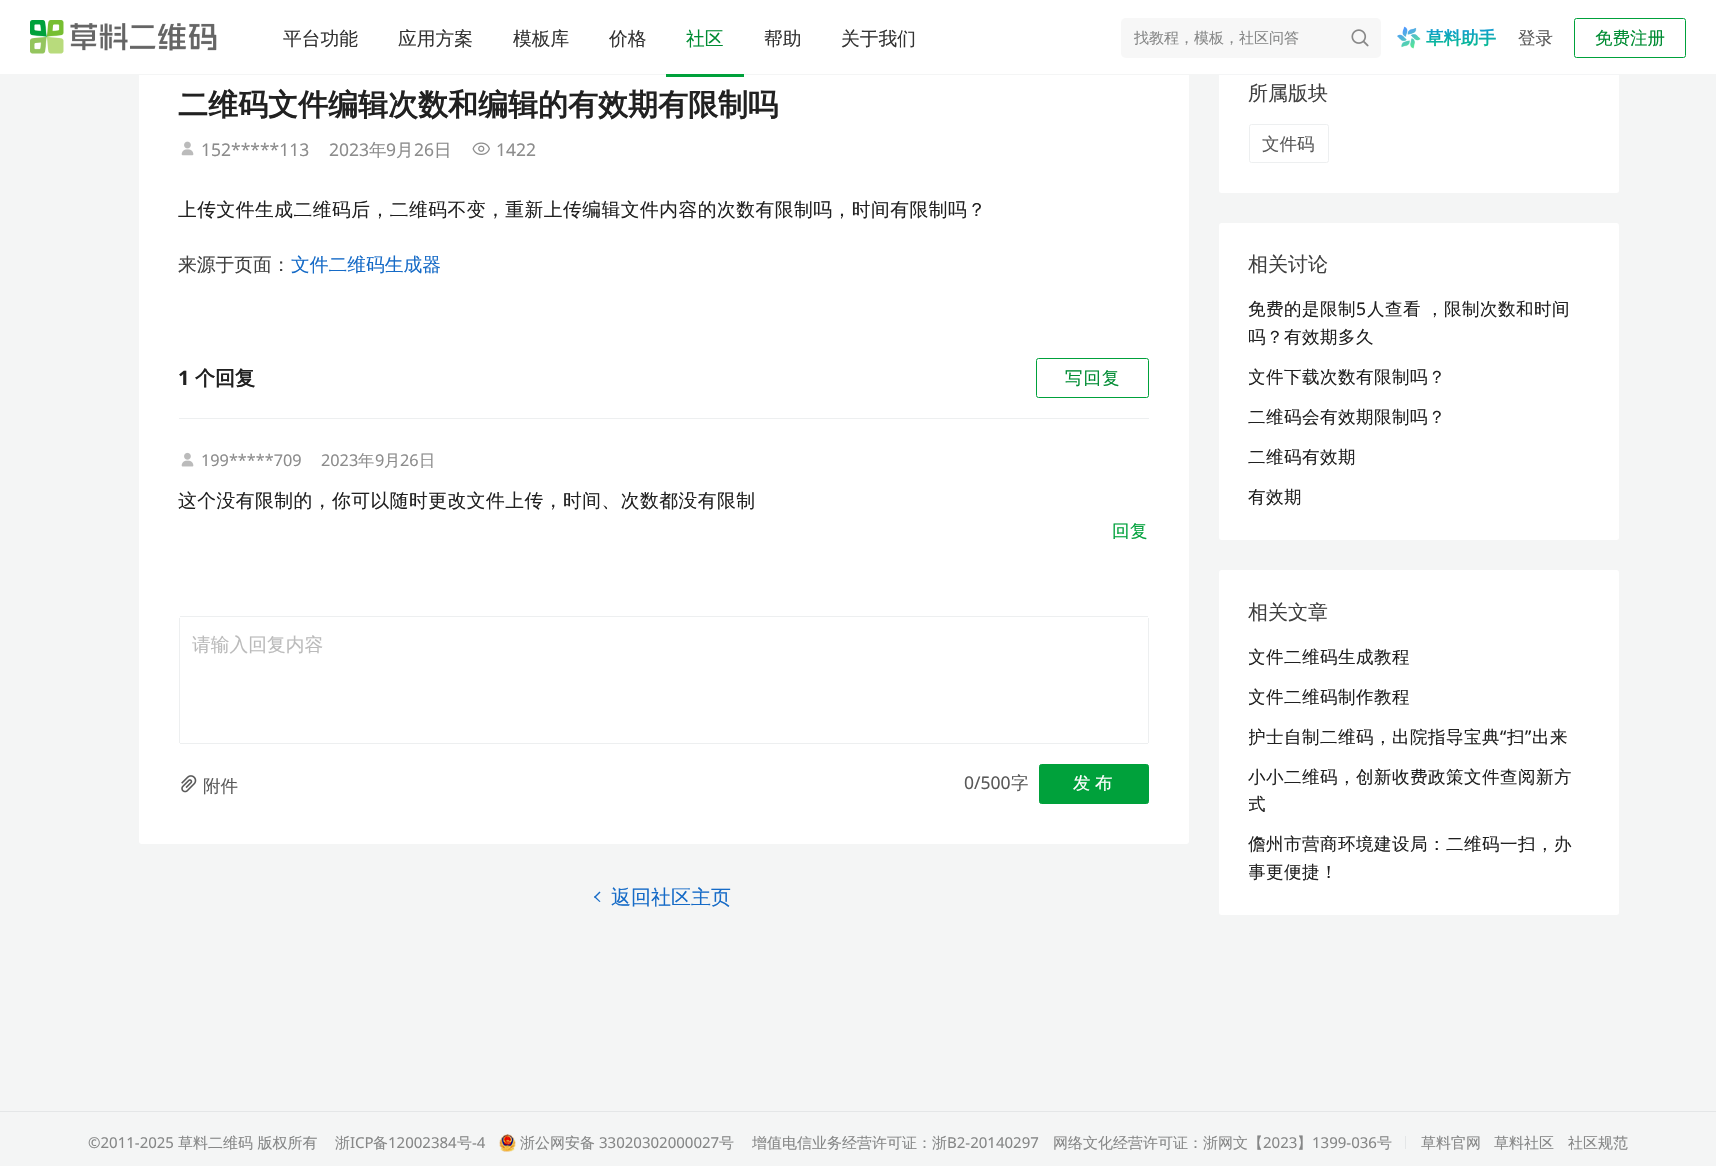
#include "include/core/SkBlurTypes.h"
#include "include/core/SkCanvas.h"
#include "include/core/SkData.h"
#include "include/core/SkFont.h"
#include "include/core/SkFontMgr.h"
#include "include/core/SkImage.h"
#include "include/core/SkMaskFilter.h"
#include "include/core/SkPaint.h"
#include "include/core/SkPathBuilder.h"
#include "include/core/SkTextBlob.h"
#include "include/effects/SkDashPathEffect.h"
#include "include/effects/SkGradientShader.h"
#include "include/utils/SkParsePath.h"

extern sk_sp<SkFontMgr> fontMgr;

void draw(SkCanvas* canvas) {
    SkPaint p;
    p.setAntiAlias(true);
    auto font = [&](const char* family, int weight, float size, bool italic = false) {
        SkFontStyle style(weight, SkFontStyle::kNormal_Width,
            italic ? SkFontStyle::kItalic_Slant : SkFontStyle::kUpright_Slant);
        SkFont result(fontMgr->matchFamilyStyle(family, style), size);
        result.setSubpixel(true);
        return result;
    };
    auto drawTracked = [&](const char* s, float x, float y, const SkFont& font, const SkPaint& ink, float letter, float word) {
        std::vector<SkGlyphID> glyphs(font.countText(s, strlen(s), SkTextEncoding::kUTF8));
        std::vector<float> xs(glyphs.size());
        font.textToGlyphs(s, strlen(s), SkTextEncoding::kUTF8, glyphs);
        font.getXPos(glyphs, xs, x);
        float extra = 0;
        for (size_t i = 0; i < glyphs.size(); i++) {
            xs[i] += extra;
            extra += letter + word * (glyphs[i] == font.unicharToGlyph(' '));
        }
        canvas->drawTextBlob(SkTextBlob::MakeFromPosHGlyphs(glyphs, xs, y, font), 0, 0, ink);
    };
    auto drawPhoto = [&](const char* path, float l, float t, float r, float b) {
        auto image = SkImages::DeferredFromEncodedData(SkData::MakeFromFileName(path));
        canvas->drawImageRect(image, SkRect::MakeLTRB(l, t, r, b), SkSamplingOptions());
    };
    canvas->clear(0xFFF4F5F5);
    p.setColor(0xFFFFFFFF);
    canvas->drawRoundRect(SkRect::MakeLTRB(1219, 51, 1619, 193), 2.5f, 2.5f, p);
    canvas->drawRect(SkRect::MakeLTRB(0, 0, 1716, 74), p);
    p.setColor(0xFFF4F5F6);
    canvas->drawRect(SkRect::MakeLTRB(1219, 74, 1619, 75), p);
    drawPhoto("media/1.png", 30, 20, 217, 54);
    auto font1 = font("WenQuanYi Zen Hei", 500, 18.75f);
    p.setColor(0xFF333333);
    {
        const struct { const char* s; float x, y; } items[] = {
            {"平台功能", 283, 45},
            {"应用方案", 398, 45},
            {"模板库", 513, 45},
            {"价格", 609, 45},
        };
        for (auto [s, x, y] : items) {
            canvas->drawString(s, x, y, font1, p);
        }
    }
    p.setColor(0xFF008C33);
    canvas->drawString("社区", 686, 45, font1, p);
    p.setColor(0xFFFFFFFF);
    canvas->drawRect(SkRect::MakeLTRB(139, 75, 1189, 318), p);
    p.setColor(0xFF00A13B);
    canvas->drawRect(SkRect::MakeLTRB(666, 74, 744, 77), p);
    p.setColor(0xFF333333);
    canvas->drawString("帮助", 764, 45, font1, p);
    canvas->drawString("关于我们", 841, 45, font1, p);
    p.setColor(0xFFF7F7F7);
    canvas->drawRoundRect(SkRect::MakeLTRB(1121, 18, 1381, 58), 5, 5, p);
    auto font2 = font("WenQuanYi Zen Hei", 500, 15);
    p.setColor(0xFF868787);
    canvas->drawString("找教程，模板，社区问答", 1134, 43, font2, p);
    drawPhoto("media/2.png", 1351, 29, 1369, 47);
    drawPhoto("media/3.png", 1397, 26, 1421, 49);
    auto font3 = font("WenQuanYi Zen Hei", 700, 17.5f);
    {
        const SkColor colors[] = {0xFF1887FE, 0xFF00D064};
        const float stops[] = {0, 1};
        const SkPoint ends[] = {{1461, 17}, {1461, 58}};
        p.setShader(SkGradientShader::MakeLinear(ends, colors, stops, 2, SkTileMode::kClamp));
        p.setAlpha(255);
    }
    canvas->drawString("草料助手", 1426, 44, font3, p);
    auto font4 = font("WenQuanYi Zen Hei", 500, 17.5f);
    p.setShader(nullptr);
    p.setColor(0xFF595959);
    canvas->drawString("登录", 1518, 44, font4, p);
    p.setStyle(SkPaint::kStroke_Style);
    p.setStrokeWidth(1);
    p.setColor(0xFF00A13B);
    canvas->drawRoundRect(SkRect::MakeLTRB(1574.5f, 18.5f, 1685.5f, 57.5f), 2, 2, p);
    p.setStyle(SkPaint::kFill_Style);
    p.setColor(0xFF008C33);
    canvas->drawString("免费注册", 1595, 44, font4, p);
    auto font5 = font("WenQuanYi Zen Hei", 700, 30);
    p.setColor(0xFF212121);
    canvas->drawString("二维码文件编辑次数和编辑的有效期有限制吗", 178, 115, font5, p);
    drawPhoto("media/4.png", 181, 141, 194, 156);
    auto font6 = font("Noto Sans", 400, 17.5f);
    p.setColor(0xFF8C8C8C);
    canvas->drawString("152*****113", 201, 156, font6, p);
    canvas->drawString("2023", 329, 156, font6, p);
    canvas->drawString("年", 369, 156, font4, p);
    canvas->drawString("9", 386, 156, font6, p);
    canvas->drawString("月", 396, 156, font4, p);
    canvas->drawString("26", 414, 156, font6, p);
    canvas->drawString("日", 434, 156, font4, p);
    drawPhoto("media/5.png", 472, 142, 490, 155);
    canvas->drawString("1422", 496, 156, font6, p);
    p.setColor(0xFF212121);
    drawTracked("上传文件生成二维码后，二维码不变，重新上传编辑文件内容的次数有限制吗，时间有限制吗？", 178, 216, font1, p, 0.5f, 0);
    p.setColor(0xFF404040);
    canvas->drawString("来源于页面：", 178, 271, font1, p);
    p.setColor(0xFF166BC7);
    canvas->drawString("文件二维码生成器", 291, 271, font1, p);
    p.setColor(0xFFFFFFFF);
    canvas->drawPath(SkPathBuilder().moveTo(139, 318).lineTo(1189, 318).lineTo(1189, 841.5f).cubicTo(1189, 843, 1188, 844, 1186.5f, 844).lineTo(141.5f, 844).cubicTo(140, 844, 139, 843, 139, 841.5f).close().detach(), p);
    auto font7 = font("Noto Sans", 700, 20);
    p.setColor(0xFF212121);
    canvas->drawString("1", 178, 385, font7, p);
    auto font8 = font("WenQuanYi Zen Hei", 700, 20);
    canvas->drawString("个回复", 195, 385, font8, p);
    p.setStyle(SkPaint::kStroke_Style);
    p.setColor(0xFF00A13B);
    canvas->drawRoundRect(SkRect::MakeLTRB(1036.5f, 358.5f, 1148.5f, 397.5f), 2, 2, p);
    p.setStyle(SkPaint::kFill_Style);
    p.setColor(0xFF008C33);
    drawTracked("写回复", 1065, 384, font4, p, 1, 0);
    p.setColor(0xFFEDEFF0);
    canvas->drawRect(SkRect::MakeLTRB(179, 418, 1149, 419), p);
    drawPhoto("media/6.png", 181, 452, 194, 467);
    auto font9 = font("Noto Sans", 400, 16.25f);
    p.setColor(0xFF8C8C8C);
    canvas->drawString("199*****709", 201, 466, font9, p);
    canvas->drawString("2023", 321, 466, font9, p);
    auto font10 = font("WenQuanYi Zen Hei", 500, 16.25f);
    canvas->drawString("年", 358, 466, font10, p);
    canvas->drawString("9", 375, 466, font9, p);
    canvas->drawString("月", 384, 466, font10, p);
    canvas->drawString("26", 400, 466, font9, p);
    canvas->drawString("日", 419, 466, font10, p);
    p.setColor(0xFF212121);
    drawTracked("这个没有限制的，你可以随时更改文件上传，时间、次数都没有限制", 178, 507, font1, p, 0.5f, 0);
    p.setColor(0xFF00A13B);
    drawTracked("回复", 1112, 537, font4, p, 0.5f, 0);
    {
        const struct { float l, t, r, b; SkColor color; } items[] = {
            {1148, 618, 1149, 743, 0xFFEDEFF0},
            {179, 618, 180, 743, 0xFFEDEFF0},
            {180, 616, 1148, 617, 0xFFEDEFF0},
        };
        for (auto [l, t, r, b, color] : items) {
            p.setColor(color);
            canvas->drawRect(SkRect::MakeLTRB(l, t, r, b), p);
        }
    }
    p.setColor(0xFFBBBBBB);
    canvas->drawString("请输入回复内容", 192, 651, font1, p);
    p.setColor(0xFFEDEFF0);
    canvas->drawRect(SkRect::MakeLTRB(180, 743, 1148, 744), p);
    drawPhoto("media/7.png", 181, 775, 197, 793);
    p.setColor(0xFF595959);
    canvas->drawString("附件", 203, 792, font4, p);
    canvas->drawString("0/500", 964, 789, font6, p);
    canvas->drawString("字", 1011, 789, font4, p);
    p.setColor(0xFF00A13B);
    canvas->drawRoundRect(SkRect::MakeLTRB(1039.5f, 764.5f, 1148.5f, 803.5f), 2, 2, p);
    p.setStyle(SkPaint::kStroke_Style);
    canvas->drawRoundRect(SkRect::MakeLTRB(1039.5f, 764.5f, 1148.5f, 803.5f), 2, 2, p);
    p.setStyle(SkPaint::kFill_Style);
    p.setColor(0xFFFFFFFF);
    canvas->drawString("发", 1073, 789, font4, p);
    canvas->drawString("布", 1095, 789, font4, p);
    p.setColor(0xFF166BC7);
    canvas->drawPath(SkPathBuilder().moveTo(595, 896).lineTo(600.5f, 901.5f).lineTo(599.5f, 902).lineTo(594, 897).close().detach(), p);
    canvas->drawPath(SkPathBuilder().moveTo(599.5f, 891.5f).lineTo(600.5f, 892.5f).lineTo(595, 898).lineTo(594, 897).close().detach(), p);
    auto font11 = font("WenQuanYi Zen Hei", 500, 20);
    canvas->drawString("返回社区主页", 611, 904, font11, p);
    p.setColor(0xFF404040);
    canvas->drawString("所属版块", 1248, 100, font11, p);
    p.setStyle(SkPaint::kStroke_Style);
    p.setColor(0xFFEDEFF0);
    canvas->drawRoundRect(SkRect::MakeLTRB(1249.5f, 124.5f, 1328.5f, 162.5f), 2, 2, p);
    p.setStyle(SkPaint::kFill_Style);
    p.setColor(0xFF595959);
    canvas->drawString("文件码", 1262, 150, font4, p);
    p.setColor(0xFFFFFFFF);
    canvas->drawRoundRect(SkRect::MakeLTRB(1219, 223, 1619, 540), 2.5f, 2.5f, p);
    p.setColor(0xFF404040);
    canvas->drawString("相关讨论", 1248, 271, font11, p);
    p.setColor(0xFF212121);
    drawTracked("免费的是限制", 1248, 315, font4, p, 0.5f, 0);
    drawTracked("5", 1356, 315, font6, p, 0.5f, 0);
    drawTracked("人查看", 1367, 315, font4, p, 0.5f, 0);
    drawTracked("，限制次数和时间", 1426, 315, font4, p, 0.5f, 0);
    canvas->save();
    canvas->clipRect(SkRect::MakeLTRB(1249, 295, 1589, 350));
    drawTracked("吗？有效期多久", 1248, 343, font4, p, 0.5f, 0);
    canvas->restore();
    canvas->save();
    canvas->clipRect(SkRect::MakeLTRB(1249, 363, 1589, 390));
    drawTracked("文件下载次数有限制吗？", 1248, 383, font4, p, 0.5f, 0);
    canvas->restore();
    {
        const struct { const char* s; float x, y; } items[] = {
            {"二维码会有效期限制吗？", 1248, 423},
            {"二维码有效期", 1248, 463},
            {"有效期", 1248, 503},
        };
        for (auto [s, x, y] : items) {
            drawTracked(s, x, y, font4, p, 0.5f, 0);
        }
    }
    p.setColor(0xFFFFFFFF);
    canvas->drawRoundRect(SkRect::MakeLTRB(1219, 570, 1619, 915), 2.5f, 2.5f, p);
    p.setColor(0xFF404040);
    canvas->drawString("相关文章", 1248, 619, font11, p);
    canvas->save();
    canvas->clipRect(SkRect::MakeLTRB(1249, 643, 1589, 670));
    p.setColor(0xFF212121);
    drawTracked("文件二维码生成教程", 1248, 663, font4, p, 0.5f, 0);
    canvas->restore();
    canvas->save();
    canvas->clipRect(SkRect::MakeLTRB(1249, 683, 1589, 710));
    drawTracked("文件二维码制作教程", 1248, 703, font4, p, 0.5f, 0);
    canvas->restore();
    canvas->save();
    canvas->clipRect(SkRect::MakeLTRB(1249, 723, 1589, 750));
    drawTracked("护士自制二维码，出院指导宝典", 1248, 743, font4, p, 0.5f, 0);
    canvas->restore();
    drawTracked("“", 1500, 743, font6, p, 0.5f, 0);
    drawTracked("扫", 1507, 743, font4, p, 0.5f, 0);
    drawTracked("”", 1525, 743, font6, p, 0.5f, 0);
    drawTracked("出来", 1532, 743, font4, p, 0.5f, 0);
    drawTracked("小小二维码，创新收费政策文件查阅新方", 1248, 783, font4, p, 0.5f, 0);
    canvas->save();
    canvas->clipRect(SkRect::MakeLTRB(1249, 763, 1589, 818));
    drawTracked("式", 1248, 810, font4, p, 0.5f, 0);
    canvas->restore();
    drawTracked("儋州市营商环境建设局：二维码一扫，办", 1248, 850, font4, p, 0.5f, 0);
    canvas->save();
    canvas->clipRect(SkRect::MakeLTRB(1249, 830, 1589, 885));
    drawTracked("事更便捷！", 1248, 878, font4, p, 0.5f, 0);
    canvas->restore();
    p.setColor(0xFFE4E6E7);
    canvas->drawRect(SkRect::MakeLTRB(0, 1111, 1716, 1112), p);
    auto font12 = font("Noto Sans", 400, 15);
    p.setColor(0xFF868787);
    canvas->drawString("©2011-2025", 88, 1148, font12, p);
    canvas->drawString("草料二维码 版权所有", 178, 1148, font2, p);
    canvas->drawString("浙", 335, 1148, font2, p);
    canvas->drawString("ICP", 350, 1148, font12, p);
    canvas->drawString("备", 373, 1148, font2, p);
    canvas->drawString("12002384", 388, 1148, font12, p);
    canvas->drawString("号", 457, 1148, font2, p);
    canvas->drawString("-4", 472, 1148, font12, p);
    drawPhoto("media/8.png", 499, 1134, 516, 1152);
    canvas->drawString("浙公网安备", 520, 1148, font2, p);
    canvas->drawString("33020302000027", 599, 1148, font12, p);
    canvas->drawString("号", 719, 1148, font2, p);
    canvas->drawString("增值电信业务经营许可证：浙", 752, 1148, font2, p);
    canvas->drawString("B2-20140297", 947, 1148, font12, p);
    canvas->drawString("网络文化经营许可证：浙网文【", 1053, 1148, font2, p);
    canvas->drawString("2023", 1263, 1148, font12, p);
    canvas->drawString("】", 1297, 1148, font2, p);
    canvas->drawString("1399-036", 1312, 1148, font12, p);
    canvas->drawString("号", 1377, 1148, font2, p);
    p.setColor(0xFFE4E6E7);
    canvas->drawRect(SkRect::MakeLTRB(1405, 1136, 1406, 1149), p);
    p.setColor(0xFF868787);
    {
        const struct { const char* s; float x, y; } items[] = {
            {"草料官网", 1421, 1148},
            {"草料社区", 1494, 1148},
            {"社区规范", 1568, 1148},
        };
        for (auto [s, x, y] : items) {
            canvas->drawString(s, x, y, font2, p);
        }
    }
}
